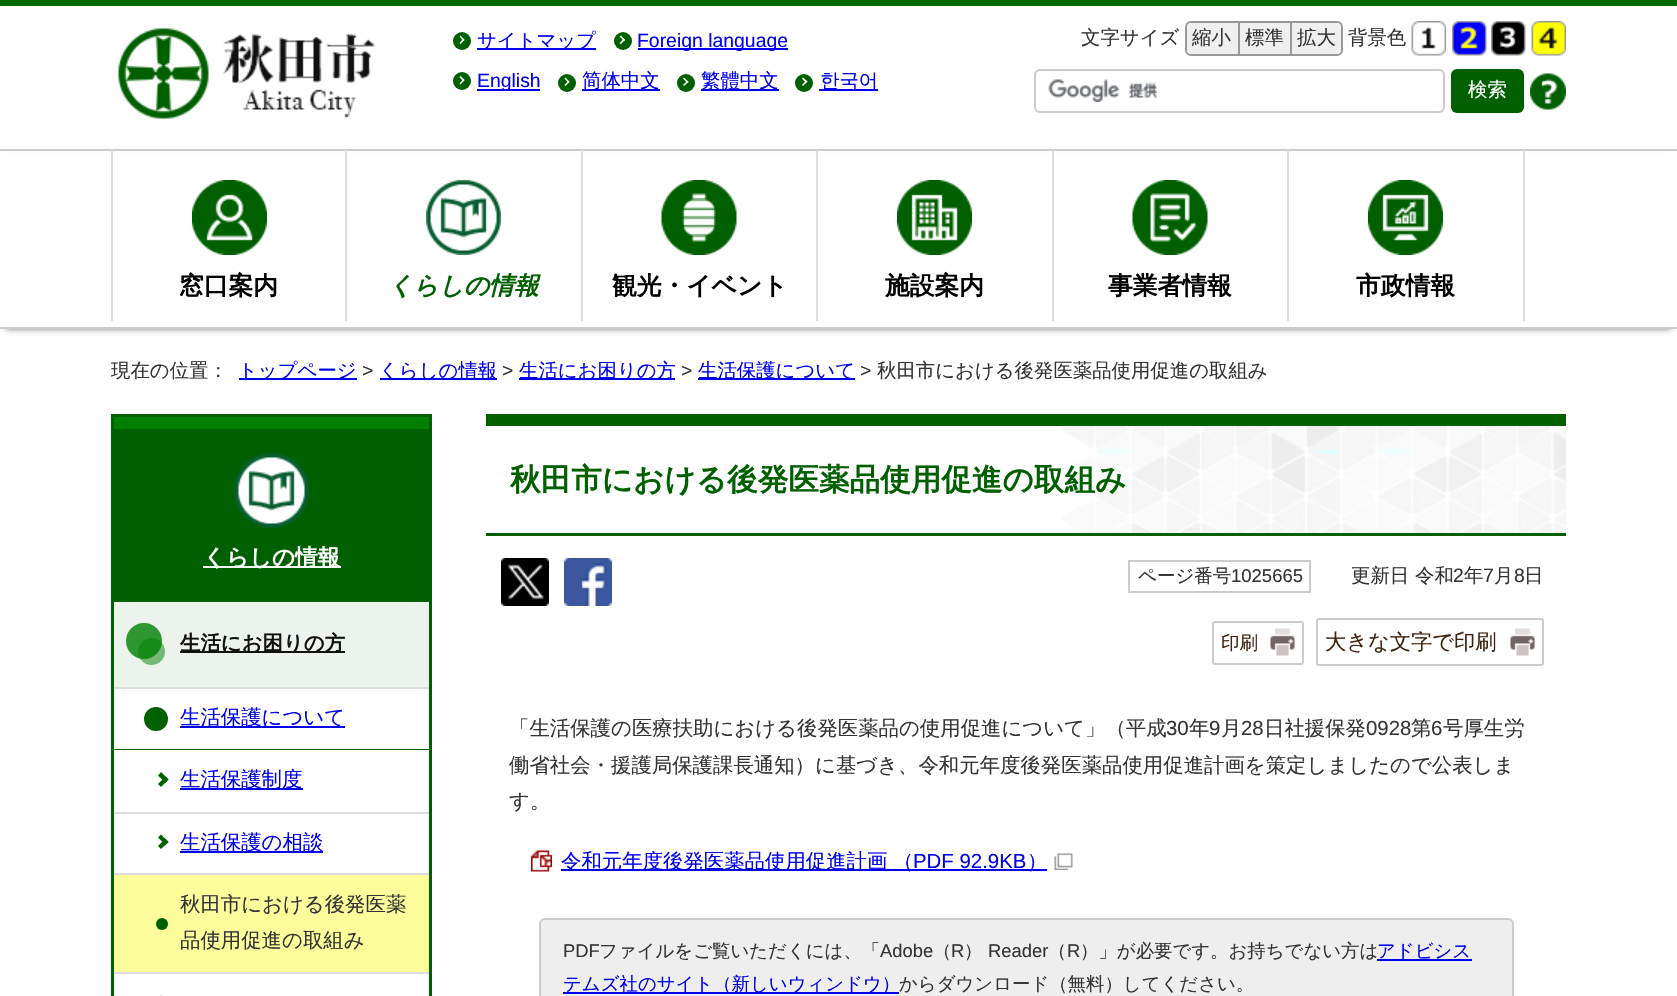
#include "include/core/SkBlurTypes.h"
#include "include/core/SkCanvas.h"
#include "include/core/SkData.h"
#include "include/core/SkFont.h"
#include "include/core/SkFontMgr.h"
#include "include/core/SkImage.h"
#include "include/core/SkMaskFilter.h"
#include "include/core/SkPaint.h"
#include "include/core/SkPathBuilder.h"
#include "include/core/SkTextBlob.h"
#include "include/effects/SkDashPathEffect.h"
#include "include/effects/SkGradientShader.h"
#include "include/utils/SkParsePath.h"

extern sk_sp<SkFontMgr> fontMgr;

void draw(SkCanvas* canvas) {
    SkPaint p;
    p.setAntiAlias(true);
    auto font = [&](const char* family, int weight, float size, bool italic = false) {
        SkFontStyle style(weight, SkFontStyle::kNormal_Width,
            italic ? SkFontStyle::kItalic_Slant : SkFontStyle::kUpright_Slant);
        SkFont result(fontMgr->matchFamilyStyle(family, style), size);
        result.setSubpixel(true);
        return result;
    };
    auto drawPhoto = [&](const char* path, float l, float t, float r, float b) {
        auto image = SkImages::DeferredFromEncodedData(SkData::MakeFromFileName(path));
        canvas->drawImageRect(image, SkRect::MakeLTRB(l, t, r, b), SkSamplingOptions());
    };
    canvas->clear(0xFFFFFFFF);
    p.setColor(0xFF006800);
    canvas->drawRect(SkRect::MakeLTRB(0, 0, 1677, 6), p);
    drawPhoto("media/1.png", 118, 28, 376, 119);
    p.setColor(0xFF006000);
    canvas->drawCircle(462, 41, 9, p);
    p.setColor(0xFF0000EE);
    canvas->drawRect(SkRect::MakeLTRB(477, 48, 596, 50), p);
    auto font1 = font("WenQuanYi Zen Hei", 500, 19.4f);
    canvas->drawString("サイトマップ", 477, 47, font1, p);
    p.setColor(0xFFFFFFFF);
    canvas->drawPath(SkPathBuilder().moveTo(460.5f, 35.5f).lineTo(464.5f, 40).lineTo(463.5f, 41).lineTo(459.5f, 36.5f).close().detach(), p);
    canvas->drawPath(SkPathBuilder().moveTo(463.5f, 38.5f).lineTo(464.5f, 40).lineTo(460.5f, 44).lineTo(459.5f, 43).close().detach(), p);
    p.setColor(0xFF006000);
    canvas->drawCircle(623, 41, 9, p);
    p.setColor(0xFF0000EE);
    canvas->drawRect(SkRect::MakeLTRB(638, 48, 788, 50), p);
    auto font2 = font("Liberation Sans", 400, 19.4f);
    canvas->drawString("Foreign language", 637, 47, font2, p);
    p.setColor(0xFFFFFFFF);
    canvas->drawPath(SkPathBuilder().moveTo(621, 35.5f).lineTo(625, 40).lineTo(624, 41).lineTo(619.5f, 36.5f).close().detach(), p);
    canvas->drawPath(SkPathBuilder().moveTo(624, 38.5f).lineTo(625, 40).lineTo(621, 44).lineTo(619.5f, 43).close().detach(), p);
    p.setColor(0xFF333333);
    canvas->drawString("文字サイズ", 1081, 44, font1, p);
    p.setStyle(SkPaint::kStroke_Style);
    p.setStrokeWidth(2);
    p.setColor(0xFF999999);
    canvas->drawRoundRect(SkRect::MakeLTRB(1186, 22, 1342, 55), 5, 5, p);
    p.setStyle(SkPaint::kFill_Style);
    p.setColor(0xFFEFEFEF);
    canvas->drawPath(SkPathBuilder().moveTo(1193, 23).lineTo(1238, 23).lineTo(1238, 54).lineTo(1193, 54).cubicTo(1189.5f, 54, 1187, 51.5f, 1187, 48).lineTo(1187, 29).cubicTo(1187, 25.5f, 1189.5f, 23, 1193, 23).close().detach(), p);
    p.setColor(0xFF333333);
    canvas->drawString("縮小", 1192, 44, font1, p);
    {
        const struct { float l, t, r, b; SkColor color; } items[] = {
            {1240, 23, 1290, 54, 0xFFEFEFEF},
            {1290, 23, 1292, 54, 0xFF999999},
            {1238, 23, 1240, 54, 0xFF999999},
        };
        for (auto [l, t, r, b, color] : items) {
            p.setColor(color);
            canvas->drawRect(SkRect::MakeLTRB(l, t, r, b), p);
        }
    }
    p.setColor(0xFF333333);
    canvas->drawString("標準", 1245, 44, font1, p);
    p.setColor(0xFFEFEFEF);
    canvas->drawPath(SkPathBuilder().moveTo(1292, 23).lineTo(1335, 23).cubicTo(1338.5f, 23, 1341, 25.5f, 1341, 29).lineTo(1341, 48).cubicTo(1341, 51.5f, 1338.5f, 54, 1335, 54).lineTo(1292, 54).close().detach(), p);
    p.setColor(0xFF333333);
    canvas->drawString("拡大", 1297, 44, font1, p);
    canvas->drawString("背景色", 1348, 44, font1, p);
    drawPhoto("media/2.png", 1411, 21, 1446, 56);
    drawPhoto("media/3.png", 1452, 21, 1487, 56);
    drawPhoto("media/4.png", 1491, 21, 1526, 56);
    drawPhoto("media/5.png", 1531, 21, 1566, 56);
    p.setColor(0xFF006000);
    canvas->drawCircle(462, 81, 9, p);
    p.setColor(0xFF0000EE);
    canvas->drawRect(SkRect::MakeLTRB(477, 89, 540, 91), p);
    canvas->drawString("English", 477, 87, font2, p);
    p.setColor(0xFFFFFFFF);
    canvas->drawPath(SkPathBuilder().moveTo(460.5f, 76).lineTo(464.5f, 80).lineTo(463.5f, 81.5f).lineTo(459.5f, 77).close().detach(), p);
    canvas->drawPath(SkPathBuilder().moveTo(463.5f, 79).lineTo(464.5f, 80).lineTo(460.5f, 84.5f).lineTo(459.5f, 83.5f).close().detach(), p);
    p.setColor(0xFF006000);
    canvas->drawCircle(567, 83, 9, p);
    p.setColor(0xFF0000EE);
    canvas->drawRect(SkRect::MakeLTRB(582, 89, 660, 91), p);
    canvas->drawString("简体中文", 582, 87, font1, p);
    p.setColor(0xFFFFFFFF);
    canvas->drawPath(SkPathBuilder().moveTo(565.5f, 77.5f).lineTo(569.5f, 82).lineTo(568.5f, 83).lineTo(564.5f, 78.5f).close().detach(), p);
    canvas->drawPath(SkPathBuilder().moveTo(568.5f, 80.5f).lineTo(569.5f, 82).lineTo(565.5f, 86).lineTo(564.5f, 85).close().detach(), p);
    p.setColor(0xFF006000);
    canvas->drawCircle(686, 83, 9, p);
    p.setColor(0xFF0000EE);
    canvas->drawRect(SkRect::MakeLTRB(701, 89, 779, 91), p);
    canvas->drawString("繁體中文", 701, 87, font1, p);
    p.setColor(0xFFFFFFFF);
    canvas->drawPath(SkPathBuilder().moveTo(684, 77.5f).lineTo(688.5f, 82).lineTo(687.5f, 83).lineTo(683, 78.5f).close().detach(), p);
    canvas->drawPath(SkPathBuilder().moveTo(687.5f, 80.5f).lineTo(688.5f, 82).lineTo(684, 86).lineTo(683, 85).close().detach(), p);
    p.setColor(0xFF006000);
    canvas->drawCircle(804, 83, 9, p);
    p.setColor(0xFF0000EE);
    canvas->drawRect(SkRect::MakeLTRB(819, 89, 878, 91), p);
    canvas->drawString("한국어", 820, 87, font1, p);
    p.setColor(0xFFFFFFFF);
    canvas->drawPath(SkPathBuilder().moveTo(803, 77.5f).lineTo(807.5f, 81.5f).lineTo(806, 83).lineTo(802, 78.5f).close().detach(), p);
    canvas->drawPath(SkPathBuilder().moveTo(806, 80.5f).lineTo(807.5f, 81.5f).lineTo(803, 86).lineTo(802, 85).close().detach(), p);
    drawPhoto("media/6.png", 1048, 79, 1158, 102);
    p.setStyle(SkPaint::kStroke_Style);
    p.setColor(0xFFCCCCCC);
    canvas->drawRoundRect(SkRect::MakeLTRB(1035, 70, 1444, 112), 5, 5, p);
    p.setStyle(SkPaint::kFill_Style);
    p.setColor(0xFF006000);
    canvas->drawRoundRect(SkRect::MakeLTRB(1451, 69, 1524, 113), 6, 6, p);
    p.setColor(0xFFFFFFFF);
    canvas->drawString("検索", 1468, 96, font1, p);
    drawPhoto("media/7.png", 1530, 73, 1566, 110);
    p.setColor(0x80000000);
    p.setMaskFilter(SkMaskFilter::MakeBlur(kNormal_SkBlurStyle, 3));
    canvas->drawRect(SkRect::MakeLTRB(6, 161, 1671, 329), p);
    p.setMaskFilter(nullptr);
    {
        const struct { float l, t, r, b; SkColor color; } items[] = {
            {0, 155, 1677, 327, 0xFFFFFFFF},
            {0, 149, 1677, 151, 0xFFCCCCCC},
            {0, 327, 1677, 329, 0xFFCCCCCC},
            {345, 150, 347, 321, 0xFFDDDDDD},
            {111, 150, 113, 321, 0xFFDDDDDD},
        };
        for (auto [l, t, r, b, color] : items) {
            p.setColor(color);
            canvas->drawRect(SkRect::MakeLTRB(l, t, r, b), p);
        }
    }
    drawPhoto("media/8.png", 192, 180, 267, 255);
    auto font3 = font("WenQuanYi Zen Hei", 700, 24.75f);
    p.setColor(0xFF000001);
    canvas->drawString("窓口案内", 179, 294, font3, p);
    p.setColor(0xFFDDDDDD);
    canvas->drawRect(SkRect::MakeLTRB(581, 150, 583, 321), p);
    drawPhoto("media/9.png", 426, 180, 501, 255);
    auto font4 = font("WenQuanYi Zen Hei", 700, 24.75f, true);
    p.setColor(0xFF006000);
    canvas->drawString("くらしの情報", 388, 294, font4, p);
    p.setColor(0xFFDDDDDD);
    canvas->drawRect(SkRect::MakeLTRB(816, 150, 818, 321), p);
    drawPhoto("media/10.png", 661, 180, 737, 255);
    p.setColor(0xFF000001);
    canvas->drawString("観光・イベント", 612, 294, font3, p);
    p.setColor(0xFFDDDDDD);
    canvas->drawRect(SkRect::MakeLTRB(1052, 150, 1054, 321), p);
    drawPhoto("media/11.png", 897, 180, 972, 255);
    p.setColor(0xFF000001);
    canvas->drawString("施設案内", 885, 294, font3, p);
    p.setColor(0xFFDDDDDD);
    canvas->drawRect(SkRect::MakeLTRB(1287, 150, 1289, 321), p);
    drawPhoto("media/12.png", 1132, 180, 1208, 255);
    p.setColor(0xFF000001);
    canvas->drawString("事業者情報", 1108, 294, font3, p);
    p.setColor(0xFFDDDDDD);
    canvas->drawRect(SkRect::MakeLTRB(1523, 150, 1525, 321), p);
    drawPhoto("media/13.png", 1368, 180, 1443, 255);
    p.setColor(0xFF000001);
    canvas->drawString("市政情報", 1356, 294, font3, p);
    p.setColor(0xFF333333);
    canvas->drawString("現在の位置：", 111, 377, font1, p);
    p.setColor(0xFF0000EE);
    canvas->drawRect(SkRect::MakeLTRB(239, 378, 357, 380), p);
    canvas->drawString("トップページ", 238, 377, font1, p);
    p.setColor(0xFF333333);
    canvas->drawString(">", 362, 377, font2, p);
    p.setColor(0xFF0000EE);
    canvas->drawRect(SkRect::MakeLTRB(380, 378, 497, 380), p);
    canvas->drawString("くらしの情報", 379, 377, font1, p);
    p.setColor(0xFF333333);
    canvas->drawString(">", 502, 377, font2, p);
    p.setColor(0xFF0000EE);
    canvas->drawRect(SkRect::MakeLTRB(519, 378, 675, 380), p);
    canvas->drawString("生活にお困りの方", 519, 377, font1, p);
    p.setColor(0xFF333333);
    canvas->drawString(">", 681, 377, font2, p);
    p.setColor(0xFF0000EE);
    canvas->drawRect(SkRect::MakeLTRB(698, 378, 855, 380), p);
    canvas->drawString("生活保護について", 698, 377, font1, p);
    p.setColor(0xFF333333);
    canvas->drawString(">", 860, 377, font2, p);
    canvas->drawString("秋田市における後発医薬品使用促進の取組み", 877, 377, font1, p);
    p.setStyle(SkPaint::kStroke_Style);
    p.setStrokeWidth(3);
    p.setColor(0xFF006000);
    canvas->drawRect(SkRect::MakeLTRB(112.5f, 415.5f, 430.5f, 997.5f), p);
    p.setStyle(SkPaint::kFill_Style);
    canvas->drawRect(SkRect::MakeLTRB(114, 429, 429, 602), p);
    drawPhoto("media/14.png", 234, 453, 309, 528);
    p.setColor(0xFF008000);
    canvas->drawRect(SkRect::MakeLTRB(114, 417, 429, 429), p);
    p.setColor(0xFFFFFFFF);
    canvas->drawRect(SkRect::MakeLTRB(203, 566, 341, 568), p);
    auto font5 = font("WenQuanYi Zen Hei", 700, 22.5f);
    canvas->drawString("くらしの情報", 203, 565, font5, p);
    p.setColor(0xFFECF2EC);
    canvas->drawRect(SkRect::MakeLTRB(114, 602, 429, 687), p);
    p.setColor(0xFF2F972F);
    canvas->drawCircle(144, 641, 18, p);
    p.setColor(0xFF111111);
    canvas->drawRect(SkRect::MakeLTRB(180, 651, 345, 653), p);
    auto font6 = font("WenQuanYi Zen Hei", 700, 20.4f);
    canvas->drawString("生活にお困りの方", 180, 650, font6, p);
    p.setColor(0x80008000);
    canvas->drawCircle(151.5f, 651.5f, 13.5f, p);
    p.setColor(0xFF006000);
    canvas->drawRect(SkRect::MakeLTRB(114, 749, 429, 750), p);
    p.setColor(0xFFDDDDDD);
    canvas->drawRect(SkRect::MakeLTRB(114, 687, 429, 689), p);
    p.setColor(0xFF006000);
    canvas->drawCircle(156, 719, 12, p);
    p.setColor(0xFF0000EE);
    canvas->drawRect(SkRect::MakeLTRB(180, 726, 345, 728), p);
    auto font7 = font("WenQuanYi Zen Hei", 500, 20.4f);
    canvas->drawString("生活保護について", 180, 724, font7, p);
    p.setColor(0xFFDDDDDD);
    canvas->drawRect(SkRect::MakeLTRB(114, 812, 429, 814), p);
    p.setColor(0xFF006000);
    canvas->drawPath(SkPathBuilder().moveTo(158, 775.5f).lineTo(161, 772).lineTo(168.5f, 779.5f).lineTo(165.5f, 783).close().detach(), p);
    canvas->drawPath(SkPathBuilder().moveTo(158, 784).lineTo(165.5f, 776.5f).lineTo(168.5f, 779.5f).lineTo(161, 787).close().detach(), p);
    p.setColor(0xFF0000EE);
    canvas->drawRect(SkRect::MakeLTRB(180, 788, 303, 790), p);
    canvas->drawString("生活保護制度", 180, 786, font7, p);
    p.setColor(0xFFDDDDDD);
    canvas->drawRect(SkRect::MakeLTRB(114, 873, 429, 875), p);
    p.setColor(0xFF006000);
    canvas->drawPath(SkPathBuilder().moveTo(158, 837.5f).lineTo(161, 834.5f).lineTo(168.5f, 842).lineTo(165.5f, 845).close().detach(), p);
    canvas->drawPath(SkPathBuilder().moveTo(158, 846).lineTo(165.5f, 838.5f).lineTo(168.5f, 842).lineTo(161, 849).close().detach(), p);
    p.setColor(0xFF0000EE);
    canvas->drawRect(SkRect::MakeLTRB(180, 851, 323, 853), p);
    canvas->drawString("生活保護の相談", 180, 849, font7, p);
    p.setColor(0xFFFDFD9B);
    canvas->drawRect(SkRect::MakeLTRB(114, 875, 429, 972), p);
    p.setColor(0xFFDDDDDD);
    canvas->drawRect(SkRect::MakeLTRB(114, 972, 429, 974), p);
    p.setColor(0xFF333333);
    canvas->drawString("秋田市における後発医薬", 180, 911, font7, p);
    p.setColor(0xFF006000);
    canvas->drawCircle(162, 924, 6, p);
    p.setColor(0xFF333333);
    canvas->drawString("品使用促進の取組み", 180, 947, font7, p);
    p.setColor(0xFF006000);
    canvas->drawPath(SkPathBuilder().moveTo(158, 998.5f).lineTo(161, 995.5f).lineTo(168.5f, 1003).lineTo(165.5f, 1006).close().detach(), p);
    drawPhoto("media/15.png", 1061, 426, 1566, 533);
    canvas->drawRect(SkRect::MakeLTRB(486, 414, 1566, 426), p);
    canvas->drawRect(SkRect::MakeLTRB(486, 533, 1566, 536), p);
    auto font8 = font("WenQuanYi Zen Hei", 700, 30.6f);
    canvas->drawString("秋田市における後発医薬品使用促進の取組み", 510, 490, font8, p);
    drawPhoto("media/16.png", 501, 558, 549, 606);
    drawPhoto("media/17.png", 564, 558, 612, 606);
    p.setStyle(SkPaint::kStroke_Style);
    p.setStrokeWidth(2);
    p.setColor(0xFFCCCCCC);
    canvas->drawRect(SkRect::MakeLTRB(1129, 561, 1310, 592), p);
    auto font9 = font("WenQuanYi Zen Hei", 500, 18.5f);
    p.setStyle(SkPaint::kFill_Style);
    p.setColor(0xFF333333);
    canvas->drawString("ページ番号", 1138, 582, font9, p);
    auto font10 = font("Liberation Sans", 400, 18.5f);
    canvas->drawString("1025665", 1231, 582, font10, p);
    canvas->drawString("更新日 令和", 1351, 582, font1, p);
    canvas->drawString("2", 1453, 582, font2, p);
    canvas->drawString("年", 1464, 582, font1, p);
    canvas->drawString("7", 1483, 582, font2, p);
    canvas->drawString("月", 1494, 582, font1, p);
    canvas->drawString("8", 1514, 582, font2, p);
    canvas->drawString("日", 1524, 582, font1, p);
    p.setStyle(SkPaint::kStroke_Style);
    p.setColor(0xFFCCCCCC);
    canvas->drawRoundRect(SkRect::MakeLTRB(1213, 622, 1303, 664), 2, 2, p);
    drawPhoto("media/18.png", 1270, 628, 1295, 656);
    p.setStyle(SkPaint::kFill_Style);
    p.setColor(0xFF40210F);
    canvas->drawString("印刷", 1221, 649, font9, p);
    p.setStyle(SkPaint::kStroke_Style);
    p.setColor(0xFFCCCCCC);
    canvas->drawRoundRect(SkRect::MakeLTRB(1317, 619, 1543, 665), 2, 2, p);
    drawPhoto("media/19.png", 1510, 628, 1535, 656);
    auto font11 = font("WenQuanYi Zen Hei", 500, 21.25f);
    p.setStyle(SkPaint::kFill_Style);
    p.setColor(0xFF40210F);
    canvas->drawString("大きな文字で印刷", 1325, 649, font11, p);
    p.setColor(0xFF333333);
    canvas->drawString("「生活保護の医療扶助における後発医薬品の使用促進について」（平成", 509, 735, font7, p);
    auto font12 = font("Liberation Sans", 400, 20.4f);
    canvas->drawString("30", 1166, 735, font12, p);
    canvas->drawString("年", 1189, 735, font7, p);
    canvas->drawString("9", 1209, 735, font12, p);
    canvas->drawString("月", 1221, 735, font7, p);
    canvas->drawString("28", 1241, 735, font12, p);
    canvas->drawString("日社援保発", 1264, 735, font7, p);
    canvas->drawString("0928", 1366, 735, font12, p);
    canvas->drawString("第", 1411, 735, font7, p);
    canvas->drawString("6", 1431, 735, font12, p);
    {
        const struct { const char* s; float x, y; } items[] = {
            {"号厚生労", 1443, 735},
            {"働省社会・援護局保護課長通知）に基づき、令和元年度後発医薬品使用促進計画を策定しましたので公表しま", 509, 772},
            {"す。", 509, 808},
        };
        for (auto [s, x, y] : items) {
            canvas->drawString(s, x, y, font7, p);
        }
    }
    drawPhoto("media/20.png", 531, 850, 552, 872);
    p.setColor(0xFF0000EE);
    canvas->drawRect(SkRect::MakeLTRB(561, 869, 1047, 871), p);
    canvas->drawString("令和元年度後発医薬品使用促進計画", 561, 868, font7, p);
    canvas->drawString("（", 893, 868, font7, p);
    canvas->drawString("PDF 92.9KB", 913, 868, font12, p);
    canvas->drawString("）", 1027, 868, font7, p);
    drawPhoto("media/21.png", 1054, 853, 1073, 870);
    p.setColor(0xFFEEEEEE);
    canvas->drawRoundRect(SkRect::MakeLTRB(540, 919, 1513, 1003), 5, 5, p);
    p.setStyle(SkPaint::kStroke_Style);
    p.setColor(0xFFCCCCCC);
    canvas->drawRoundRect(SkRect::MakeLTRB(540, 919, 1513, 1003), 5, 5, p);
    auto font13 = font("Liberation Sans", 400, 18.4f);
    p.setStyle(SkPaint::kFill_Style);
    p.setColor(0xFF333333);
    canvas->drawString("PDF", 563, 957, font13, p);
    auto font14 = font("WenQuanYi Zen Hei", 500, 18.4f);
    canvas->drawString("ファイルをご覧いただくには、「", 599, 957, font14, p);
    canvas->drawString("Adobe", 880, 957, font13, p);
    canvas->drawString("（", 933, 957, font14, p);
    canvas->drawString("R", 951, 957, font13, p);
    canvas->drawString("）", 964, 957, font14, p);
    canvas->drawString("Reader", 988, 957, font13, p);
    canvas->drawString("（", 1048, 957, font14, p);
    canvas->drawString("R", 1067, 957, font13, p);
    canvas->drawString("）」が必要です。お持ちでない方は", 1080, 957, font14, p);
    p.setColor(0xFF0000EE);
    canvas->drawRect(SkRect::MakeLTRB(1377, 959, 1472, 961), p);
    canvas->drawString("アドビシス", 1377, 957, font14, p);
    canvas->drawRect(SkRect::MakeLTRB(563, 992, 899, 994), p);
    canvas->drawString("テムズ社のサイト（新しいウィンドウ）", 563, 990, font14, p);
    p.setColor(0xFF333333);
    canvas->drawString("からダウンロード（無料）してください。", 899, 990, font14, p);
}
